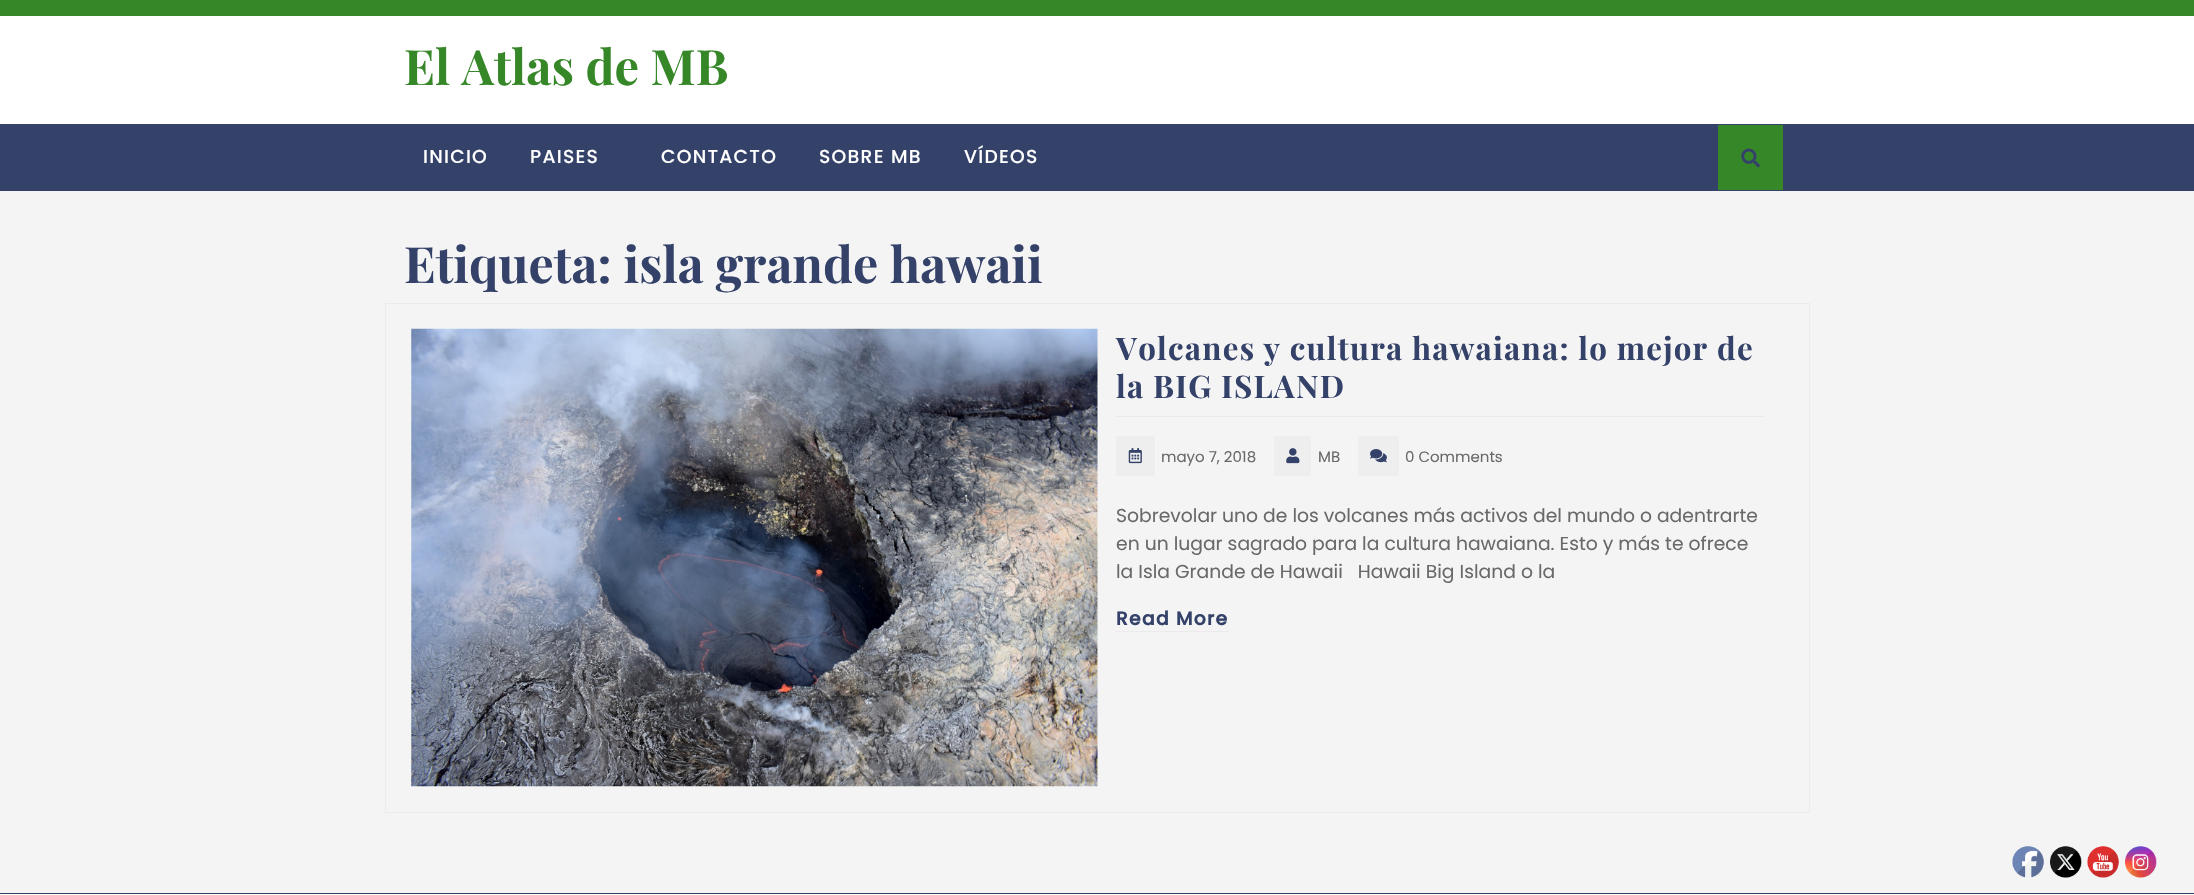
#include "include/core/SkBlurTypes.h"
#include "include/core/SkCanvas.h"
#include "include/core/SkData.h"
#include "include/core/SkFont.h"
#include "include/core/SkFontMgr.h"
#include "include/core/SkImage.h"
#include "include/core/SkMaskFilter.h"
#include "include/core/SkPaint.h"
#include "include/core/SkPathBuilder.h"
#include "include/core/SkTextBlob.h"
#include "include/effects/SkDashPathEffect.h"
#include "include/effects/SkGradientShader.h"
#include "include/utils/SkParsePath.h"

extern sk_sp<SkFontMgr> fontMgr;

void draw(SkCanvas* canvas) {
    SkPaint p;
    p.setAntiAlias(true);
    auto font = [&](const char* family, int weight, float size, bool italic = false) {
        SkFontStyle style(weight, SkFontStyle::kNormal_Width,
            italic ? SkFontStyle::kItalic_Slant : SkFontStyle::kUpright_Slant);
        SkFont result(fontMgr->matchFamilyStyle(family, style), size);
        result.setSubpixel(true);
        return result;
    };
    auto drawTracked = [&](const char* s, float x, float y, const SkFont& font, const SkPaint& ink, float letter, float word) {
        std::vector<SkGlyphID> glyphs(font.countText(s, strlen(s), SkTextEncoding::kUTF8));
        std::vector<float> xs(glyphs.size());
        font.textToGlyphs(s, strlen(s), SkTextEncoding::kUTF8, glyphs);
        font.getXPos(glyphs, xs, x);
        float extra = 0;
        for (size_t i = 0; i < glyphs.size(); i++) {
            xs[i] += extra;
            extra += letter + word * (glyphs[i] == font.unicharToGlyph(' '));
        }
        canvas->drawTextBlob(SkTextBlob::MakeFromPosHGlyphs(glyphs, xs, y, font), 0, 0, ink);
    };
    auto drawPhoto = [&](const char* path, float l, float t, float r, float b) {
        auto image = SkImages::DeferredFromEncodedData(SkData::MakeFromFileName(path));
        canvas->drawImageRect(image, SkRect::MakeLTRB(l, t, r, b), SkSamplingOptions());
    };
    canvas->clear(0xFFF4F4F4);
    p.setColor(0xFF368728);
    canvas->drawRect(SkRect::MakeLTRB(0, 0, 2194, 16), p);
    p.setColor(0xFFFFFFFF);
    canvas->drawRect(SkRect::MakeLTRB(0, 16, 2194, 124), p);
    auto font1 = font("Playfair Display", 700, 48.75f);
    p.setColor(0xFF368728);
    canvas->drawString("El Atlas de MB", 404, 85, font1, p);
    p.setColor(0xFF344269);
    canvas->drawRect(SkRect::MakeLTRB(0, 124, 2194, 191), p);
    auto font2 = font("Poppins", 500, 18.75f);
    p.setColor(0xFFFFFFFF);
    {
        const struct { const char* s; float x, y; } items[] = {
            {"INICIO", 423, 163},
            {"PAISES", 530, 163},
            {"CONTACTO", 661, 163},
            {"SOBRE MB", 819, 163},
            {"VÍDEOS", 964, 163},
        };
        for (auto [s, x, y] : items) {
            drawTracked(s, x, y, font2, p, 1.25f, 0);
        }
    }
    p.setColor(0xFF368728);
    canvas->drawRect(SkRect::MakeLTRB(1718, 125, 1783, 190), p);
    drawPhoto("media/1.png", 1741, 148, 1760, 168);
    auto font3 = font("Playfair Display", 700, 50);
    p.setColor(0xFF344269);
    canvas->drawString("Etiqueta: isla grande hawaii", 404, 283, font3, p);
    p.setStyle(SkPaint::kStroke_Style);
    p.setStrokeWidth(1);
    p.setColor(0xFFEBEBEB);
    canvas->drawRect(SkRect::MakeLTRB(385.5f, 303.5f, 1809.5f, 812.5f), p);
    drawPhoto("media/2.png", 411, 328, 1098, 787);
    p.setStyle(SkPaint::kFill_Style);
    canvas->drawRect(SkRect::MakeLTRB(1116, 416, 1765, 417), p);
    auto font4 = font("Playfair Display", 700, 31.25f);
    p.setColor(0xFF344269);
    drawTracked("Volcanes y cultura hawaiana: lo mejor de", 1116, 360, font4, p, 1.25f, 0);
    drawTracked("la BIG ISLAND", 1116, 398, font4, p, 1.25f, 0);
    p.setColor(0xFFEEEEEE);
    canvas->drawRect(SkRect::MakeLTRB(1116, 436, 1155, 476), p);
    drawPhoto("media/3.png", 1128, 448, 1142, 464);
    auto font5 = font("Poppins", 400, 15);
    p.setColor(0xFF696969);
    canvas->drawString("mayo 7, 2018", 1161, 462, font5, p);
    p.setColor(0xFFEEEEEE);
    canvas->drawRect(SkRect::MakeLTRB(1274, 436, 1311, 476), p);
    drawPhoto("media/4.png", 1286, 448, 1300, 464);
    p.setColor(0xFF696969);
    canvas->drawString("MB", 1318, 462, font5, p);
    p.setColor(0xFFEEEEEE);
    canvas->drawRect(SkRect::MakeLTRB(1358, 436, 1399, 476), p);
    drawPhoto("media/5.png", 1370, 449, 1387, 463);
    p.setColor(0xFF696969);
    canvas->drawString("0 Comments", 1405, 462, font5, p);
    auto font6 = font("Poppins", 400, 18.75f);
    {
        const struct { const char* s; float x, y; } items[] = {
            {"Sobrevolar uno de los volcanes más activos del mundo o adentrarte", 1116, 522},
            {"en un lugar sagrado para la cultura hawaiana. Esto y más te ofrece", 1116, 550},
            {"la Isla Grande de Hawaii   Hawaii Big Island o la", 1116, 578},
        };
        for (auto [s, x, y] : items) {
            canvas->drawString(s, x, y, font6, p);
        }
    }
    auto font7 = font("Poppins", 700, 18.75f);
    p.setColor(0xFF344269);
    drawTracked("Read More", 1116, 625, font7, p, 1.25f, 0);
    p.setColor(0xFFEBEBEB);
    canvas->drawRect(SkRect::MakeLTRB(1116, 631, 1229, 632), p);
    drawPhoto("media/6.png", 2012, 846, 2044, 878);
    drawPhoto("media/7.png", 2050, 846, 2082, 878);
    drawPhoto("media/8.png", 2087, 846, 2119, 878);
    drawPhoto("media/9.png", 2125, 846, 2157, 878);
    p.setColor(0xFF344269);
    canvas->drawRect(SkRect::MakeLTRB(0, 893, 2194, 894), p);
    p.setColor(0xFFFFFFFF);
    canvas->drawRect(SkRect::MakeLTRB(0, 894, 2194, 895), p);
}
